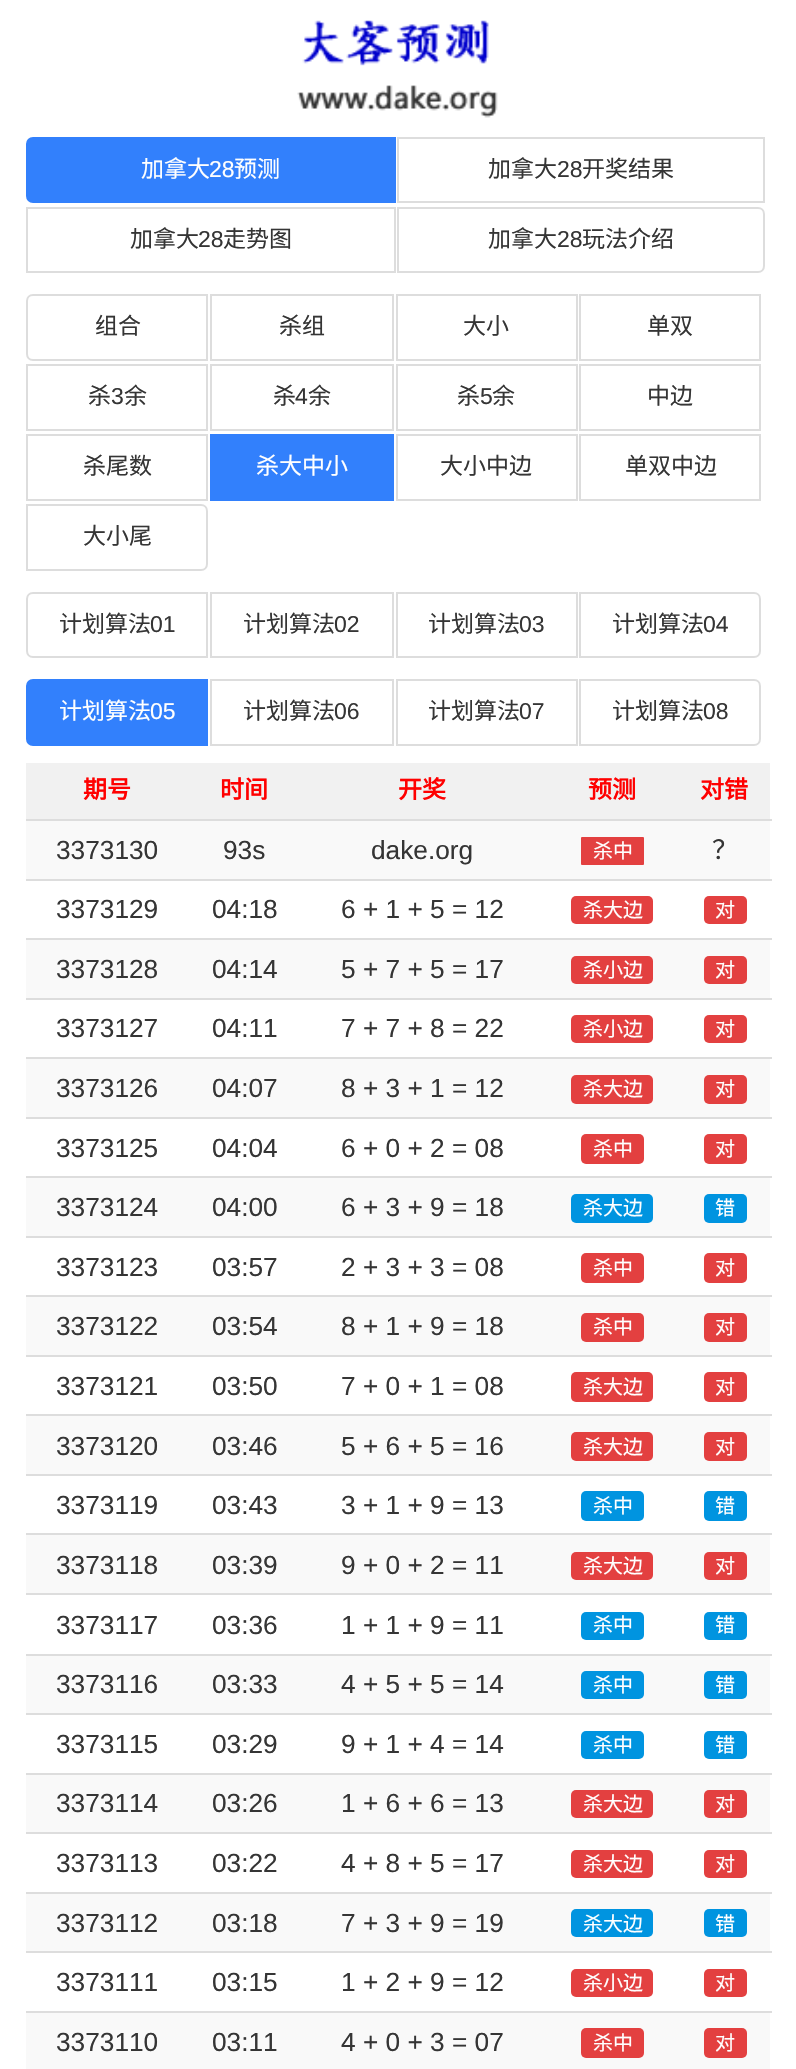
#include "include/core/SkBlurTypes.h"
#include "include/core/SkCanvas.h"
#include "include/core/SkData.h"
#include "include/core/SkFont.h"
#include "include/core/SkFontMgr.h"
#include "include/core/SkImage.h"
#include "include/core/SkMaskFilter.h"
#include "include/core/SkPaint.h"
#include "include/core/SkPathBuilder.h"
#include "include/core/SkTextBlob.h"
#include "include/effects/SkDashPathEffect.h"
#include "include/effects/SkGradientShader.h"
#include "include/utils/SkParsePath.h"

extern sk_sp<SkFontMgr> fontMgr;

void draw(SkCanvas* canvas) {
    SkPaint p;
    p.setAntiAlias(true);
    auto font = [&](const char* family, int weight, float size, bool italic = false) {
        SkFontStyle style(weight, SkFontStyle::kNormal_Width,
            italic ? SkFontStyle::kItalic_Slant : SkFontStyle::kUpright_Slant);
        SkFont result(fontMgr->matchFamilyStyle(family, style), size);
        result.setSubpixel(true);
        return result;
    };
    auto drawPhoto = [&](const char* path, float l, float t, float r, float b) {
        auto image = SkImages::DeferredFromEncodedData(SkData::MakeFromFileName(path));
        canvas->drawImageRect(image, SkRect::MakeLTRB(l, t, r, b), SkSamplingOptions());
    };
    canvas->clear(0xFFFFFFFF);
    drawPhoto("media/1.png", 297, 20, 498, 118);
    p.setColor(0xFF3280FC);
    canvas->drawPath(SkPathBuilder().moveTo(33, 138).lineTo(395, 138).lineTo(395, 202).lineTo(33, 202).cubicTo(29.5f, 202, 27, 199.5f, 27, 196).lineTo(27, 144).cubicTo(27, 140.5f, 29.5f, 138, 33, 138).close().detach(), p);
    p.setStyle(SkPaint::kStroke_Style);
    p.setStrokeWidth(2);
    canvas->drawPath(SkPathBuilder().moveTo(33, 138).lineTo(395, 138).lineTo(395, 202).lineTo(33, 202).cubicTo(29.5f, 202, 27, 199.5f, 27, 196).lineTo(27, 144).cubicTo(27, 140.5f, 29.5f, 138, 33, 138).close().detach(), p);
    auto font1 = font("Noto Sans CJK SC", 400, 23);
    p.setStyle(SkPaint::kFill_Style);
    p.setColor(0xFFFFFFFF);
    canvas->drawString("加拿大", 141, 177, font1, p);
    auto font2 = font("Liberation Sans", 400, 23);
    canvas->drawString("28", 209, 177, font2, p);
    canvas->drawString("预测", 234, 177, font1, p);
    p.setStyle(SkPaint::kStroke_Style);
    p.setColor(0xFFDDDDDD);
    canvas->drawRect(SkRect::MakeLTRB(398, 138, 764, 202), p);
    p.setStyle(SkPaint::kFill_Style);
    p.setColor(0xFF353535);
    canvas->drawString("加拿大", 488, 177, font1, p);
    canvas->drawString("28", 557, 177, font2, p);
    canvas->drawString("开奖结果", 582, 177, font1, p);
    p.setStyle(SkPaint::kStroke_Style);
    p.setColor(0xFFDDDDDD);
    canvas->drawRect(SkRect::MakeLTRB(27, 208, 395, 272), p);
    p.setStyle(SkPaint::kFill_Style);
    p.setColor(0xFF353535);
    canvas->drawString("加拿大", 130, 247, font1, p);
    canvas->drawString("28", 198, 247, font2, p);
    canvas->drawString("走势图", 223, 247, font1, p);
    p.setStyle(SkPaint::kStroke_Style);
    p.setColor(0xFFDDDDDD);
    canvas->drawPath(SkPathBuilder().moveTo(398, 208).lineTo(758, 208).cubicTo(761.5f, 208, 764, 210.5f, 764, 214).lineTo(764, 266).cubicTo(764, 269.5f, 761.5f, 272, 758, 272).lineTo(398, 272).close().detach(), p);
    p.setStyle(SkPaint::kFill_Style);
    p.setColor(0xFF353535);
    canvas->drawString("加拿大", 488, 247, font1, p);
    canvas->drawString("28", 557, 247, font2, p);
    canvas->drawString("玩法介绍", 582, 247, font1, p);
    p.setStyle(SkPaint::kStroke_Style);
    p.setColor(0xFFDDDDDD);
    canvas->drawPath(SkPathBuilder().moveTo(33, 295).lineTo(207, 295).lineTo(207, 360).lineTo(33, 360).cubicTo(29.5f, 360, 27, 357.5f, 27, 354).lineTo(27, 301).cubicTo(27, 297.5f, 29.5f, 295, 33, 295).close().detach(), p);
    p.setStyle(SkPaint::kFill_Style);
    p.setColor(0xFF353535);
    canvas->drawString("组合", 95, 334, font1, p);
    p.setStyle(SkPaint::kStroke_Style);
    p.setColor(0xFFDDDDDD);
    canvas->drawRect(SkRect::MakeLTRB(211, 295, 393, 360), p);
    p.setStyle(SkPaint::kFill_Style);
    p.setColor(0xFF353535);
    canvas->drawString("杀组", 279, 334, font1, p);
    p.setStyle(SkPaint::kStroke_Style);
    p.setColor(0xFFDDDDDD);
    canvas->drawRect(SkRect::MakeLTRB(397, 295, 577, 360), p);
    p.setStyle(SkPaint::kFill_Style);
    p.setColor(0xFF353535);
    canvas->drawString("大小", 463, 334, font1, p);
    p.setStyle(SkPaint::kStroke_Style);
    p.setColor(0xFFDDDDDD);
    canvas->drawRect(SkRect::MakeLTRB(580, 295, 760, 360), p);
    p.setStyle(SkPaint::kFill_Style);
    p.setColor(0xFF353535);
    canvas->drawString("单双", 647, 334, font1, p);
    p.setStyle(SkPaint::kStroke_Style);
    p.setColor(0xFFDDDDDD);
    canvas->drawRect(SkRect::MakeLTRB(27, 365, 207, 430), p);
    p.setStyle(SkPaint::kFill_Style);
    p.setColor(0xFF353535);
    canvas->drawString("杀", 88, 404, font1, p);
    canvas->drawString("3", 111, 404, font2, p);
    canvas->drawString("余", 124, 404, font1, p);
    p.setStyle(SkPaint::kStroke_Style);
    p.setColor(0xFFDDDDDD);
    canvas->drawRect(SkRect::MakeLTRB(211, 365, 393, 430), p);
    p.setStyle(SkPaint::kFill_Style);
    p.setColor(0xFF353535);
    canvas->drawString("杀", 273, 404, font1, p);
    canvas->drawString("4", 295, 404, font2, p);
    canvas->drawString("余", 308, 404, font1, p);
    p.setStyle(SkPaint::kStroke_Style);
    p.setColor(0xFFDDDDDD);
    canvas->drawRect(SkRect::MakeLTRB(397, 365, 577, 430), p);
    p.setStyle(SkPaint::kFill_Style);
    p.setColor(0xFF353535);
    canvas->drawString("杀", 457, 404, font1, p);
    canvas->drawString("5", 480, 404, font2, p);
    canvas->drawString("余", 492, 404, font1, p);
    p.setStyle(SkPaint::kStroke_Style);
    p.setColor(0xFFDDDDDD);
    canvas->drawRect(SkRect::MakeLTRB(580, 365, 760, 430), p);
    p.setStyle(SkPaint::kFill_Style);
    p.setColor(0xFF353535);
    canvas->drawString("中边", 647, 404, font1, p);
    p.setStyle(SkPaint::kStroke_Style);
    p.setColor(0xFFDDDDDD);
    canvas->drawRect(SkRect::MakeLTRB(27, 435, 207, 500), p);
    p.setStyle(SkPaint::kFill_Style);
    p.setColor(0xFF353535);
    canvas->drawString("杀尾数", 83, 474, font1, p);
    p.setColor(0xFF3280FC);
    canvas->drawRect(SkRect::MakeLTRB(210, 434, 394, 501), p);
    p.setColor(0xFFFFFFFF);
    canvas->drawString("杀大中小", 256, 474, font1, p);
    p.setStyle(SkPaint::kStroke_Style);
    p.setColor(0xFFDDDDDD);
    canvas->drawRect(SkRect::MakeLTRB(397, 435, 577, 500), p);
    p.setStyle(SkPaint::kFill_Style);
    p.setColor(0xFF353535);
    canvas->drawString("大小中边", 440, 474, font1, p);
    p.setStyle(SkPaint::kStroke_Style);
    p.setColor(0xFFDDDDDD);
    canvas->drawRect(SkRect::MakeLTRB(580, 435, 760, 500), p);
    p.setStyle(SkPaint::kFill_Style);
    p.setColor(0xFF353535);
    canvas->drawString("单双中边", 625, 474, font1, p);
    p.setStyle(SkPaint::kStroke_Style);
    p.setColor(0xFFDDDDDD);
    canvas->drawPath(SkPathBuilder().moveTo(27, 505).lineTo(201, 505).cubicTo(204.5f, 505, 207, 507.5f, 207, 511).lineTo(207, 564).cubicTo(207, 567.5f, 204.5f, 570, 201, 570).lineTo(27, 570).close().detach(), p);
    p.setStyle(SkPaint::kFill_Style);
    p.setColor(0xFF353535);
    canvas->drawString("大小尾", 83, 544, font1, p);
    p.setStyle(SkPaint::kStroke_Style);
    p.setColor(0xFFDDDDDD);
    canvas->drawPath(SkPathBuilder().moveTo(33, 593).lineTo(207, 593).lineTo(207, 657).lineTo(33, 657).cubicTo(29.5f, 657, 27, 654.5f, 27, 651).lineTo(27, 599).cubicTo(27, 595.5f, 29.5f, 593, 33, 593).close().detach(), p);
    p.setStyle(SkPaint::kFill_Style);
    p.setColor(0xFF353535);
    canvas->drawString("计划算法", 59, 632, font1, p);
    canvas->drawString("01", 150, 632, font2, p);
    p.setStyle(SkPaint::kStroke_Style);
    p.setColor(0xFFDDDDDD);
    canvas->drawRect(SkRect::MakeLTRB(211, 593, 393, 657), p);
    p.setStyle(SkPaint::kFill_Style);
    p.setColor(0xFF353535);
    canvas->drawString("计划算法", 243, 632, font1, p);
    canvas->drawString("02", 334, 632, font2, p);
    p.setStyle(SkPaint::kStroke_Style);
    p.setColor(0xFFDDDDDD);
    canvas->drawRect(SkRect::MakeLTRB(397, 593, 577, 657), p);
    p.setStyle(SkPaint::kFill_Style);
    p.setColor(0xFF353535);
    canvas->drawString("计划算法", 428, 632, font1, p);
    canvas->drawString("03", 519, 632, font2, p);
    p.setStyle(SkPaint::kStroke_Style);
    p.setColor(0xFFDDDDDD);
    canvas->drawPath(SkPathBuilder().moveTo(580, 593).lineTo(754, 593).cubicTo(757.5f, 593, 760, 595.5f, 760, 599).lineTo(760, 651).cubicTo(760, 654.5f, 757.5f, 657, 754, 657).lineTo(580, 657).close().detach(), p);
    p.setStyle(SkPaint::kFill_Style);
    p.setColor(0xFF353535);
    canvas->drawString("计划算法", 612, 632, font1, p);
    canvas->drawString("04", 703, 632, font2, p);
    p.setColor(0xFF3280FC);
    canvas->drawPath(SkPathBuilder().moveTo(33, 680).lineTo(207, 680).lineTo(207, 745).lineTo(33, 745).cubicTo(29.5f, 745, 27, 742.5f, 27, 739).lineTo(27, 686).cubicTo(27, 682.5f, 29.5f, 680, 33, 680).close().detach(), p);
    p.setStyle(SkPaint::kStroke_Style);
    canvas->drawPath(SkPathBuilder().moveTo(33, 680).lineTo(207, 680).lineTo(207, 745).lineTo(33, 745).cubicTo(29.5f, 745, 27, 742.5f, 27, 739).lineTo(27, 686).cubicTo(27, 682.5f, 29.5f, 680, 33, 680).close().detach(), p);
    p.setStyle(SkPaint::kFill_Style);
    p.setColor(0xFFFFFFFF);
    canvas->drawString("计划算法", 59, 719, font1, p);
    canvas->drawString("05", 150, 719, font2, p);
    p.setStyle(SkPaint::kStroke_Style);
    p.setColor(0xFFDDDDDD);
    canvas->drawRect(SkRect::MakeLTRB(211, 680, 393, 745), p);
    p.setStyle(SkPaint::kFill_Style);
    p.setColor(0xFF353535);
    canvas->drawString("计划算法", 243, 719, font1, p);
    canvas->drawString("06", 334, 719, font2, p);
    p.setStyle(SkPaint::kStroke_Style);
    p.setColor(0xFFDDDDDD);
    canvas->drawRect(SkRect::MakeLTRB(397, 680, 577, 745), p);
    p.setStyle(SkPaint::kFill_Style);
    p.setColor(0xFF353535);
    canvas->drawString("计划算法", 428, 719, font1, p);
    canvas->drawString("07", 519, 719, font2, p);
    p.setStyle(SkPaint::kStroke_Style);
    p.setColor(0xFFDDDDDD);
    canvas->drawPath(SkPathBuilder().moveTo(580, 680).lineTo(754, 680).cubicTo(757.5f, 680, 760, 682.5f, 760, 686).lineTo(760, 739).cubicTo(760, 742.5f, 757.5f, 745, 754, 745).lineTo(580, 745).close().detach(), p);
    p.setStyle(SkPaint::kFill_Style);
    p.setColor(0xFF353535);
    canvas->drawString("计划算法", 612, 719, font1, p);
    canvas->drawString("08", 703, 719, font2, p);
    p.setColor(0xFFF1F1F1);
    canvas->drawRect(SkRect::MakeLTRB(26, 763, 770, 819), p);
    auto font3 = font("Noto Sans CJK SC", 700, 24);
    p.setColor(0xFFFF0000);
    {
        const struct { const char* s; float x, y; } items[] = {
            {"期号", 83, 798},
            {"时间", 220, 798},
            {"开奖", 398, 798},
            {"预测", 588, 798},
        };
        for (auto [s, x, y] : items) {
            canvas->drawString(s, x, y, font3, p);
        }
    }
    p.setColor(0xFFDDDDDD);
    canvas->drawRect(SkRect::MakeLTRB(26, 819, 772, 821), p);
    p.setColor(0xFFFF0000);
    canvas->drawString("对错", 700, 798, font3, p);
    p.setColor(0xFFF9F9F9);
    canvas->drawRect(SkRect::MakeLTRB(26, 821, 770, 879), p);
    auto font4 = font("Liberation Sans", 400, 26.25f);
    p.setColor(0xFF353535);
    {
        const struct { const char* s; float x, y; } items[] = {
            {"3373130", 56, 859},
            {"93s", 223, 859},
            {"dake.org", 371, 859},
        };
        for (auto [s, x, y] : items) {
            canvas->drawString(s, x, y, font4, p);
        }
    }
    p.setColor(0xFFE34040);
    canvas->drawRoundRect(SkRect::MakeLTRB(581, 837, 644, 865), 1, 1, p);
    auto font5 = font("Noto Sans CJK SC", 400, 20);
    p.setColor(0xFFFFFFFF);
    canvas->drawString("杀中", 593, 858, font5, p);
    p.setColor(0xFFDDDDDD);
    canvas->drawRect(SkRect::MakeLTRB(26, 879, 772, 881), p);
    auto font6 = font("Noto Sans CJK SC", 400, 26.25f);
    p.setColor(0xFF353535);
    canvas->drawString("？", 712, 859, font6, p);
    {
        const struct { const char* s; float x, y; } items[] = {
            {"3373129", 56, 918},
            {"04:18", 212, 918},
            {"6 + 1 + 5 = 12", 341, 918},
        };
        for (auto [s, x, y] : items) {
            canvas->drawString(s, x, y, font4, p);
        }
    }
    p.setColor(0xFFE34040);
    canvas->drawRoundRect(SkRect::MakeLTRB(571, 896, 653, 924), 5, 5, p);
    p.setColor(0xFFFFFFFF);
    canvas->drawString("杀大边", 583, 917, font5, p);
    p.setColor(0xFFDDDDDD);
    canvas->drawRect(SkRect::MakeLTRB(26, 938, 772, 940), p);
    p.setColor(0xFFE34040);
    canvas->drawRoundRect(SkRect::MakeLTRB(704, 896, 747, 924), 5, 5, p);
    p.setColor(0xFFFFFFFF);
    canvas->drawString("对", 715, 917, font5, p);
    p.setColor(0xFFF9F9F9);
    canvas->drawRect(SkRect::MakeLTRB(26, 940, 770, 998), p);
    p.setColor(0xFF353535);
    {
        const struct { const char* s; float x, y; } items[] = {
            {"3373128", 56, 978},
            {"04:14", 212, 978},
            {"5 + 7 + 5 = 17", 341, 978},
        };
        for (auto [s, x, y] : items) {
            canvas->drawString(s, x, y, font4, p);
        }
    }
    p.setColor(0xFFE34040);
    canvas->drawRoundRect(SkRect::MakeLTRB(571, 956, 653, 984), 5, 5, p);
    p.setColor(0xFFFFFFFF);
    canvas->drawString("杀小边", 583, 977, font5, p);
    p.setColor(0xFFDDDDDD);
    canvas->drawRect(SkRect::MakeLTRB(26, 998, 772, 1000), p);
    p.setColor(0xFFE34040);
    canvas->drawRoundRect(SkRect::MakeLTRB(704, 956, 747, 984), 5, 5, p);
    p.setColor(0xFFFFFFFF);
    canvas->drawString("对", 715, 977, font5, p);
    p.setColor(0xFF353535);
    {
        const struct { const char* s; float x, y; } items[] = {
            {"3373127", 56, 1037},
            {"04:11", 212, 1037},
            {"7 + 7 + 8 = 22", 341, 1037},
        };
        for (auto [s, x, y] : items) {
            canvas->drawString(s, x, y, font4, p);
        }
    }
    p.setColor(0xFFE34040);
    canvas->drawRoundRect(SkRect::MakeLTRB(571, 1015, 653, 1043), 5, 5, p);
    p.setColor(0xFFFFFFFF);
    canvas->drawString("杀小边", 583, 1036, font5, p);
    p.setColor(0xFFDDDDDD);
    canvas->drawRect(SkRect::MakeLTRB(26, 1057, 772, 1059), p);
    p.setColor(0xFFE34040);
    canvas->drawRoundRect(SkRect::MakeLTRB(704, 1015, 747, 1043), 5, 5, p);
    p.setColor(0xFFFFFFFF);
    canvas->drawString("对", 715, 1036, font5, p);
    p.setColor(0xFFF9F9F9);
    canvas->drawRect(SkRect::MakeLTRB(26, 1059, 770, 1117), p);
    p.setColor(0xFF353535);
    {
        const struct { const char* s; float x, y; } items[] = {
            {"3373126", 56, 1097},
            {"04:07", 212, 1097},
            {"8 + 3 + 1 = 12", 341, 1097},
        };
        for (auto [s, x, y] : items) {
            canvas->drawString(s, x, y, font4, p);
        }
    }
    p.setColor(0xFFE34040);
    canvas->drawRoundRect(SkRect::MakeLTRB(571, 1075, 653, 1104), 5, 5, p);
    p.setColor(0xFFFFFFFF);
    canvas->drawString("杀大边", 583, 1096, font5, p);
    p.setColor(0xFFDDDDDD);
    canvas->drawRect(SkRect::MakeLTRB(26, 1117, 772, 1119), p);
    p.setColor(0xFFE34040);
    canvas->drawRoundRect(SkRect::MakeLTRB(704, 1075, 747, 1104), 5, 5, p);
    p.setColor(0xFFFFFFFF);
    canvas->drawString("对", 715, 1096, font5, p);
    p.setColor(0xFF353535);
    {
        const struct { const char* s; float x, y; } items[] = {
            {"3373125", 56, 1157},
            {"04:04", 212, 1157},
            {"6 + 0 + 2 = 08", 341, 1157},
        };
        for (auto [s, x, y] : items) {
            canvas->drawString(s, x, y, font4, p);
        }
    }
    p.setColor(0xFFE34040);
    canvas->drawRoundRect(SkRect::MakeLTRB(581, 1134, 644, 1164), 5, 5, p);
    p.setColor(0xFFFFFFFF);
    canvas->drawString("杀中", 593, 1156, font5, p);
    p.setColor(0xFFDDDDDD);
    canvas->drawRect(SkRect::MakeLTRB(26, 1176, 772, 1178), p);
    p.setColor(0xFFE34040);
    canvas->drawRoundRect(SkRect::MakeLTRB(704, 1134, 747, 1164), 5, 5, p);
    p.setColor(0xFFFFFFFF);
    canvas->drawString("对", 715, 1156, font5, p);
    p.setColor(0xFFF9F9F9);
    canvas->drawRect(SkRect::MakeLTRB(26, 1178, 770, 1236), p);
    p.setColor(0xFF353535);
    {
        const struct { const char* s; float x, y; } items[] = {
            {"3373124", 56, 1216},
            {"04:00", 212, 1216},
            {"6 + 3 + 9 = 18", 341, 1216},
        };
        for (auto [s, x, y] : items) {
            canvas->drawString(s, x, y, font4, p);
        }
    }
    p.setColor(0xFF0094E0);
    canvas->drawRoundRect(SkRect::MakeLTRB(571, 1194, 653, 1223), 5, 5, p);
    p.setColor(0xFFFFFFFF);
    canvas->drawString("杀大边", 583, 1215, font5, p);
    p.setColor(0xFFDDDDDD);
    canvas->drawRect(SkRect::MakeLTRB(26, 1236, 772, 1238), p);
    p.setColor(0xFF0094E0);
    canvas->drawRoundRect(SkRect::MakeLTRB(704, 1194, 747, 1223), 5, 5, p);
    p.setColor(0xFFFFFFFF);
    canvas->drawString("错", 715, 1215, font5, p);
    p.setColor(0xFF353535);
    {
        const struct { const char* s; float x, y; } items[] = {
            {"3373123", 56, 1276},
            {"03:57", 212, 1276},
            {"2 + 3 + 3 = 08", 341, 1276},
        };
        for (auto [s, x, y] : items) {
            canvas->drawString(s, x, y, font4, p);
        }
    }
    p.setColor(0xFFE34040);
    canvas->drawRoundRect(SkRect::MakeLTRB(581, 1253, 644, 1283), 5, 5, p);
    p.setColor(0xFFFFFFFF);
    canvas->drawString("杀中", 593, 1275, font5, p);
    p.setColor(0xFFDDDDDD);
    canvas->drawRect(SkRect::MakeLTRB(26, 1295, 772, 1297), p);
    p.setColor(0xFFE34040);
    canvas->drawRoundRect(SkRect::MakeLTRB(704, 1253, 747, 1283), 5, 5, p);
    p.setColor(0xFFFFFFFF);
    canvas->drawString("对", 715, 1275, font5, p);
    p.setColor(0xFFF9F9F9);
    canvas->drawRect(SkRect::MakeLTRB(26, 1297, 770, 1355), p);
    p.setColor(0xFF353535);
    {
        const struct { const char* s; float x, y; } items[] = {
            {"3373122", 56, 1335},
            {"03:54", 212, 1335},
            {"8 + 1 + 9 = 18", 341, 1335},
        };
        for (auto [s, x, y] : items) {
            canvas->drawString(s, x, y, font4, p);
        }
    }
    p.setColor(0xFFE34040);
    canvas->drawRoundRect(SkRect::MakeLTRB(581, 1313, 644, 1342), 5, 5, p);
    p.setColor(0xFFFFFFFF);
    canvas->drawString("杀中", 593, 1334, font5, p);
    p.setColor(0xFFDDDDDD);
    canvas->drawRect(SkRect::MakeLTRB(26, 1355, 772, 1357), p);
    p.setColor(0xFFE34040);
    canvas->drawRoundRect(SkRect::MakeLTRB(704, 1313, 747, 1342), 5, 5, p);
    p.setColor(0xFFFFFFFF);
    canvas->drawString("对", 715, 1334, font5, p);
    p.setColor(0xFF353535);
    {
        const struct { const char* s; float x, y; } items[] = {
            {"3373121", 56, 1395},
            {"03:50", 212, 1395},
            {"7 + 0 + 1 = 08", 341, 1395},
        };
        for (auto [s, x, y] : items) {
            canvas->drawString(s, x, y, font4, p);
        }
    }
    p.setColor(0xFFE34040);
    canvas->drawRoundRect(SkRect::MakeLTRB(571, 1372, 653, 1402), 5, 5, p);
    p.setColor(0xFFFFFFFF);
    canvas->drawString("杀大边", 583, 1394, font5, p);
    p.setColor(0xFFDDDDDD);
    canvas->drawRect(SkRect::MakeLTRB(26, 1414, 772, 1416), p);
    p.setColor(0xFFE34040);
    canvas->drawRoundRect(SkRect::MakeLTRB(704, 1372, 747, 1402), 5, 5, p);
    p.setColor(0xFFFFFFFF);
    canvas->drawString("对", 715, 1394, font5, p);
    p.setColor(0xFFF9F9F9);
    canvas->drawRect(SkRect::MakeLTRB(26, 1416, 770, 1474), p);
    p.setColor(0xFF353535);
    {
        const struct { const char* s; float x, y; } items[] = {
            {"3373120", 56, 1455},
            {"03:46", 212, 1455},
            {"5 + 6 + 5 = 16", 341, 1455},
        };
        for (auto [s, x, y] : items) {
            canvas->drawString(s, x, y, font4, p);
        }
    }
    p.setColor(0xFFE34040);
    canvas->drawRoundRect(SkRect::MakeLTRB(571, 1432, 653, 1461), 5, 5, p);
    p.setColor(0xFFFFFFFF);
    canvas->drawString("杀大边", 583, 1454, font5, p);
    p.setColor(0xFFDDDDDD);
    canvas->drawRect(SkRect::MakeLTRB(26, 1474, 772, 1476), p);
    p.setColor(0xFFE34040);
    canvas->drawRoundRect(SkRect::MakeLTRB(704, 1432, 747, 1461), 5, 5, p);
    p.setColor(0xFFFFFFFF);
    canvas->drawString("对", 715, 1454, font5, p);
    p.setColor(0xFF353535);
    {
        const struct { const char* s; float x, y; } items[] = {
            {"3373119", 56, 1514},
            {"03:43", 212, 1514},
            {"3 + 1 + 9 = 13", 341, 1514},
        };
        for (auto [s, x, y] : items) {
            canvas->drawString(s, x, y, font4, p);
        }
    }
    p.setColor(0xFF0094E0);
    canvas->drawRoundRect(SkRect::MakeLTRB(581, 1491, 644, 1521), 5, 5, p);
    p.setColor(0xFFFFFFFF);
    canvas->drawString("杀中", 593, 1513, font5, p);
    p.setColor(0xFFDDDDDD);
    canvas->drawRect(SkRect::MakeLTRB(26, 1533, 772, 1535), p);
    p.setColor(0xFF0094E0);
    canvas->drawRoundRect(SkRect::MakeLTRB(704, 1491, 747, 1521), 5, 5, p);
    p.setColor(0xFFFFFFFF);
    canvas->drawString("错", 715, 1513, font5, p);
    p.setColor(0xFFF9F9F9);
    canvas->drawRect(SkRect::MakeLTRB(26, 1535, 770, 1593), p);
    p.setColor(0xFF353535);
    {
        const struct { const char* s; float x, y; } items[] = {
            {"3373118", 56, 1574},
            {"03:39", 212, 1574},
            {"9 + 0 + 2 = 11", 341, 1574},
        };
        for (auto [s, x, y] : items) {
            canvas->drawString(s, x, y, font4, p);
        }
    }
    p.setColor(0xFFE34040);
    canvas->drawRoundRect(SkRect::MakeLTRB(571, 1552, 653, 1580), 5, 5, p);
    p.setColor(0xFFFFFFFF);
    canvas->drawString("杀大边", 583, 1573, font5, p);
    p.setColor(0xFFDDDDDD);
    canvas->drawRect(SkRect::MakeLTRB(26, 1593, 772, 1595), p);
    p.setColor(0xFFE34040);
    canvas->drawRoundRect(SkRect::MakeLTRB(704, 1552, 747, 1580), 5, 5, p);
    p.setColor(0xFFFFFFFF);
    canvas->drawString("对", 715, 1573, font5, p);
    p.setColor(0xFF353535);
    {
        const struct { const char* s; float x, y; } items[] = {
            {"3373117", 56, 1634},
            {"03:36", 212, 1634},
            {"1 + 1 + 9 = 11", 341, 1634},
        };
        for (auto [s, x, y] : items) {
            canvas->drawString(s, x, y, font4, p);
        }
    }
    p.setColor(0xFF0094E0);
    canvas->drawRoundRect(SkRect::MakeLTRB(581, 1612, 644, 1640), 5, 5, p);
    p.setColor(0xFFFFFFFF);
    canvas->drawString("杀中", 593, 1632, font5, p);
    p.setColor(0xFFDDDDDD);
    canvas->drawRect(SkRect::MakeLTRB(26, 1654, 772, 1656), p);
    p.setColor(0xFF0094E0);
    canvas->drawRoundRect(SkRect::MakeLTRB(704, 1612, 747, 1640), 5, 5, p);
    p.setColor(0xFFFFFFFF);
    canvas->drawString("错", 715, 1632, font5, p);
    p.setColor(0xFFF9F9F9);
    canvas->drawRect(SkRect::MakeLTRB(26, 1656, 770, 1713), p);
    p.setColor(0xFF353535);
    {
        const struct { const char* s; float x, y; } items[] = {
            {"3373116", 56, 1693},
            {"03:33", 212, 1693},
            {"4 + 5 + 5 = 14", 341, 1693},
        };
        for (auto [s, x, y] : items) {
            canvas->drawString(s, x, y, font4, p);
        }
    }
    p.setColor(0xFF0094E0);
    canvas->drawRoundRect(SkRect::MakeLTRB(581, 1671, 644, 1699), 5, 5, p);
    p.setColor(0xFFFFFFFF);
    canvas->drawString("杀中", 593, 1692, font5, p);
    p.setColor(0xFFDDDDDD);
    canvas->drawRect(SkRect::MakeLTRB(26, 1713, 772, 1715), p);
    p.setColor(0xFF0094E0);
    canvas->drawRoundRect(SkRect::MakeLTRB(704, 1671, 747, 1699), 5, 5, p);
    p.setColor(0xFFFFFFFF);
    canvas->drawString("错", 715, 1692, font5, p);
    p.setColor(0xFF353535);
    {
        const struct { const char* s; float x, y; } items[] = {
            {"3373115", 56, 1753},
            {"03:29", 212, 1753},
            {"9 + 1 + 4 = 14", 341, 1753},
        };
        for (auto [s, x, y] : items) {
            canvas->drawString(s, x, y, font4, p);
        }
    }
    p.setColor(0xFF0094E0);
    canvas->drawRoundRect(SkRect::MakeLTRB(581, 1731, 644, 1759), 5, 5, p);
    p.setColor(0xFFFFFFFF);
    canvas->drawString("杀中", 593, 1752, font5, p);
    p.setColor(0xFFDDDDDD);
    canvas->drawRect(SkRect::MakeLTRB(26, 1773, 772, 1775), p);
    p.setColor(0xFF0094E0);
    canvas->drawRoundRect(SkRect::MakeLTRB(704, 1731, 747, 1759), 5, 5, p);
    p.setColor(0xFFFFFFFF);
    canvas->drawString("错", 715, 1752, font5, p);
    p.setColor(0xFFF9F9F9);
    canvas->drawRect(SkRect::MakeLTRB(26, 1775, 770, 1832), p);
    p.setColor(0xFF353535);
    {
        const struct { const char* s; float x, y; } items[] = {
            {"3373114", 56, 1812},
            {"03:26", 212, 1812},
            {"1 + 6 + 6 = 13", 341, 1812},
        };
        for (auto [s, x, y] : items) {
            canvas->drawString(s, x, y, font4, p);
        }
    }
    p.setColor(0xFFE34040);
    canvas->drawRoundRect(SkRect::MakeLTRB(571, 1790, 653, 1818), 5, 5, p);
    p.setColor(0xFFFFFFFF);
    canvas->drawString("杀大边", 583, 1811, font5, p);
    p.setColor(0xFFDDDDDD);
    canvas->drawRect(SkRect::MakeLTRB(26, 1832, 772, 1834), p);
    p.setColor(0xFFE34040);
    canvas->drawRoundRect(SkRect::MakeLTRB(704, 1790, 747, 1818), 5, 5, p);
    p.setColor(0xFFFFFFFF);
    canvas->drawString("对", 715, 1811, font5, p);
    p.setColor(0xFF353535);
    {
        const struct { const char* s; float x, y; } items[] = {
            {"3373113", 56, 1872},
            {"03:22", 212, 1872},
            {"4 + 8 + 5 = 17", 341, 1872},
        };
        for (auto [s, x, y] : items) {
            canvas->drawString(s, x, y, font4, p);
        }
    }
    p.setColor(0xFFE34040);
    canvas->drawRoundRect(SkRect::MakeLTRB(571, 1850, 653, 1878), 5, 5, p);
    p.setColor(0xFFFFFFFF);
    canvas->drawString("杀大边", 583, 1871, font5, p);
    p.setColor(0xFFDDDDDD);
    canvas->drawRect(SkRect::MakeLTRB(26, 1892, 772, 1894), p);
    p.setColor(0xFFE34040);
    canvas->drawRoundRect(SkRect::MakeLTRB(704, 1850, 747, 1878), 5, 5, p);
    p.setColor(0xFFFFFFFF);
    canvas->drawString("对", 715, 1871, font5, p);
    p.setColor(0xFFF9F9F9);
    canvas->drawRect(SkRect::MakeLTRB(26, 1894, 770, 1951), p);
    p.setColor(0xFF353535);
    {
        const struct { const char* s; float x, y; } items[] = {
            {"3373112", 56, 1932},
            {"03:18", 212, 1932},
            {"7 + 3 + 9 = 19", 341, 1932},
        };
        for (auto [s, x, y] : items) {
            canvas->drawString(s, x, y, font4, p);
        }
    }
    p.setColor(0xFF0094E0);
    canvas->drawRoundRect(SkRect::MakeLTRB(571, 1909, 653, 1937), 5, 5, p);
    p.setColor(0xFFFFFFFF);
    canvas->drawString("杀大边", 583, 1931, font5, p);
    p.setColor(0xFFDDDDDD);
    canvas->drawRect(SkRect::MakeLTRB(26, 1951, 772, 1953), p);
    p.setColor(0xFF0094E0);
    canvas->drawRoundRect(SkRect::MakeLTRB(704, 1909, 747, 1937), 5, 5, p);
    p.setColor(0xFFFFFFFF);
    canvas->drawString("错", 715, 1931, font5, p);
    p.setColor(0xFF353535);
    {
        const struct { const char* s; float x, y; } items[] = {
            {"3373111", 56, 1991},
            {"03:15", 212, 1991},
            {"1 + 2 + 9 = 12", 341, 1991},
        };
        for (auto [s, x, y] : items) {
            canvas->drawString(s, x, y, font4, p);
        }
    }
    p.setColor(0xFFE34040);
    canvas->drawRoundRect(SkRect::MakeLTRB(571, 1969, 653, 1997), 5, 5, p);
    p.setColor(0xFFFFFFFF);
    canvas->drawString("杀小边", 583, 1990, font5, p);
    p.setColor(0xFFDDDDDD);
    canvas->drawRect(SkRect::MakeLTRB(26, 2011, 772, 2013), p);
    p.setColor(0xFFE34040);
    canvas->drawRoundRect(SkRect::MakeLTRB(704, 1969, 747, 1997), 5, 5, p);
    p.setColor(0xFFFFFFFF);
    canvas->drawString("对", 715, 1990, font5, p);
    p.setColor(0xFFF9F9F9);
    canvas->drawRect(SkRect::MakeLTRB(26, 2013, 770, 2069), p);
    p.setColor(0xFF353535);
    {
        const struct { const char* s; float x, y; } items[] = {
            {"3373110", 56, 2051},
            {"03:11", 212, 2051},
            {"4 + 0 + 3 = 07", 341, 2051},
        };
        for (auto [s, x, y] : items) {
            canvas->drawString(s, x, y, font4, p);
        }
    }
    p.setColor(0xFFE34040);
    canvas->drawRoundRect(SkRect::MakeLTRB(581, 2028, 644, 2058), 5, 5, p);
    p.setColor(0xFFFFFFFF);
    canvas->drawString("杀中", 593, 2050, font5, p);
    p.setColor(0xFFE34040);
    canvas->drawRoundRect(SkRect::MakeLTRB(704, 2028, 747, 2058), 5, 5, p);
    p.setColor(0xFFFFFFFF);
    canvas->drawString("对", 715, 2050, font5, p);
}
